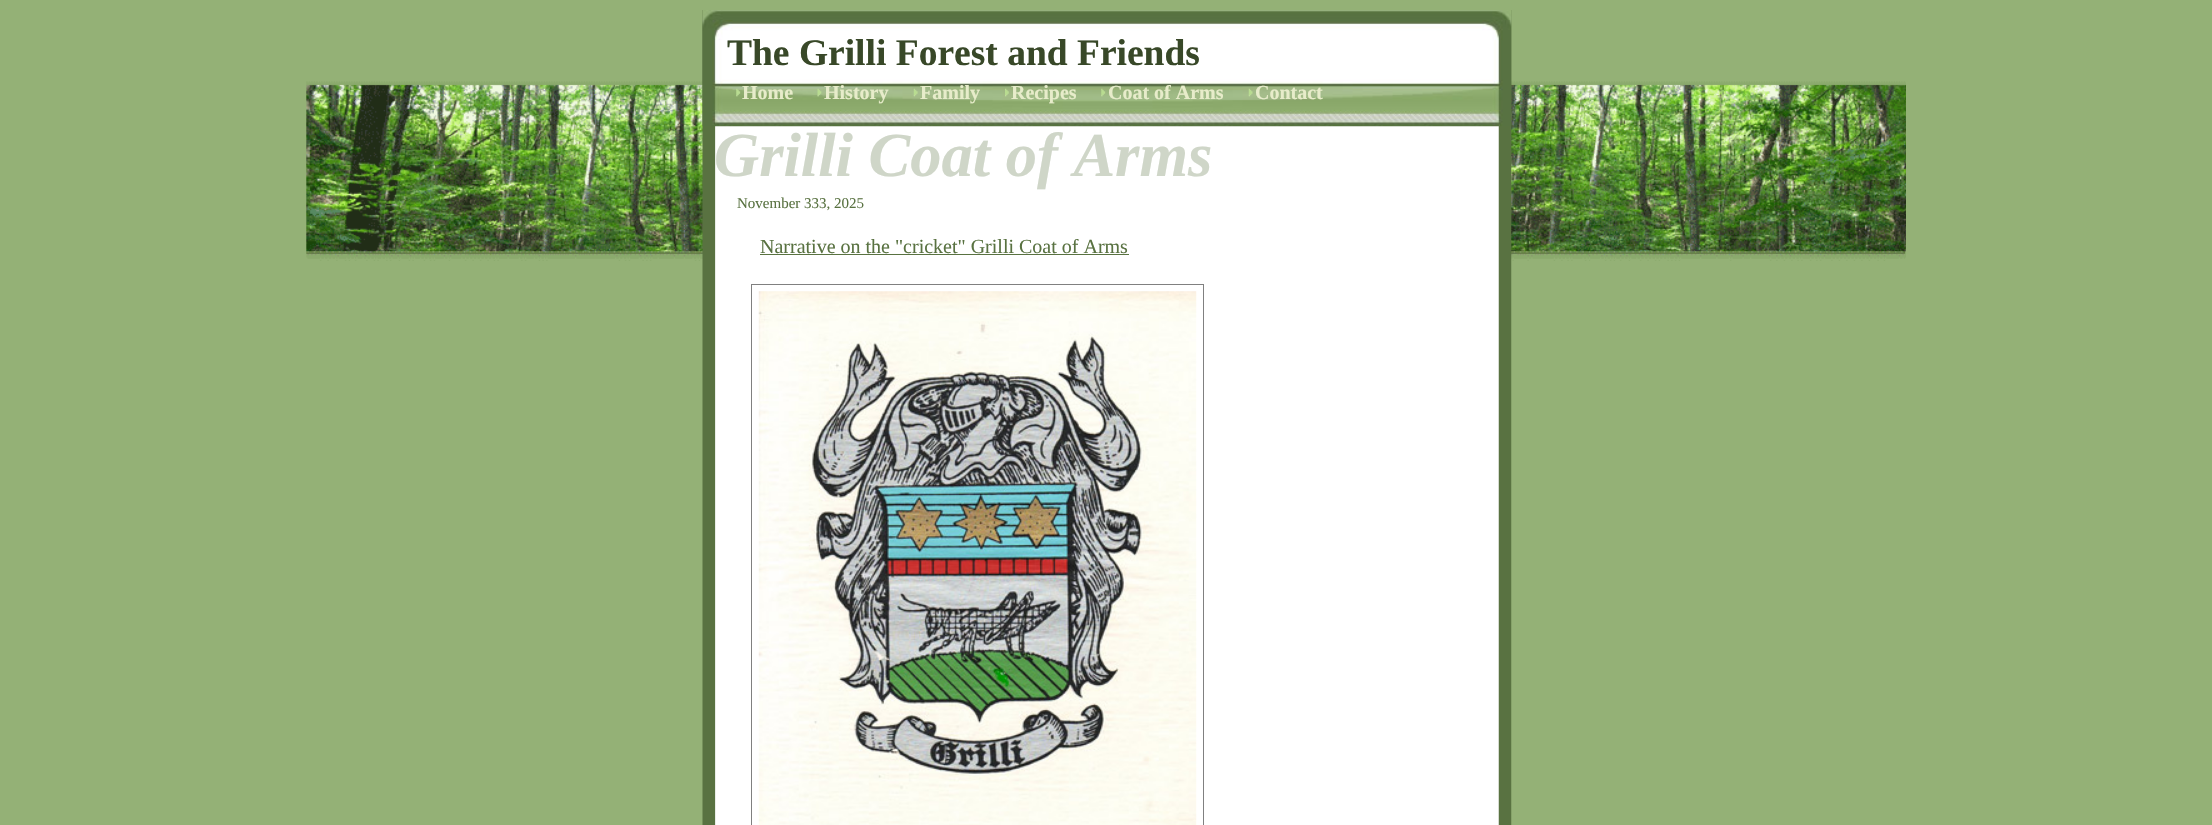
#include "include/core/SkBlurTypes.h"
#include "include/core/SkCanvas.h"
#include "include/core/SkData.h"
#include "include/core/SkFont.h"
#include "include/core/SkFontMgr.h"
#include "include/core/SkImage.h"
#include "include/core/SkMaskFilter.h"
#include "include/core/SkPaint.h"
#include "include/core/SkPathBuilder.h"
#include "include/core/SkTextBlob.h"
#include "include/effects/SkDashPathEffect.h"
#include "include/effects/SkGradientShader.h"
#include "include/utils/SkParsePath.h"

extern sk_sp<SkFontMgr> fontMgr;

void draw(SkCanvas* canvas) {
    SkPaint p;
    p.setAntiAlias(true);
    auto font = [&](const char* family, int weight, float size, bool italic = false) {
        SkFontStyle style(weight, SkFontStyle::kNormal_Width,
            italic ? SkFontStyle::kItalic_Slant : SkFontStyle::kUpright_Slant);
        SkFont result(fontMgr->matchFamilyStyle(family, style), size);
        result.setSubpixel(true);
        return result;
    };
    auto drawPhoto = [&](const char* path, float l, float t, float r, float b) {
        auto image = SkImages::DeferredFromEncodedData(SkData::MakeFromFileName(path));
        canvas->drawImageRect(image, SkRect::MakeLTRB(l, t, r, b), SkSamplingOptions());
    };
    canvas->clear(0xFF94B176);
    drawPhoto("media/1.png", 306, 81, 1906, 261);
    drawPhoto("media/2.png", 702, 10, 1512, 825);
    p.setColor(0xFF597241);
    canvas->drawRect(SkRect::MakeLTRB(714, 126, 715, 825), p);
    drawPhoto("media/3.png", 702, 10, 1512, 127);
    auto font1 = font("Liberation Serif", 700, 37.5f);
    p.setColor(0xFF384828);
    canvas->drawString("The Grilli Forest and Friends", 727, 65, font1, p);
    drawPhoto("media/4.png", 736, 88, 741, 97);
    auto font2 = font("Liberation Serif", 700, 20);
    p.setColor(0xFFE7ECCA);
    canvas->drawString("Home", 742, 99, font2, p);
    drawPhoto("media/5.png", 817, 88, 822, 97);
    canvas->drawString("History", 824, 99, font2, p);
    drawPhoto("media/6.png", 913, 88, 918, 97);
    canvas->drawString("Family", 920, 99, font2, p);
    drawPhoto("media/7.png", 1005, 88, 1009, 97);
    canvas->drawString("Recipes", 1011, 99, font2, p);
    drawPhoto("media/8.png", 1101, 88, 1106, 97);
    canvas->drawString("Coat of Arms", 1108, 99, font2, p);
    drawPhoto("media/9.png", 1248, 88, 1253, 97);
    canvas->drawString("Contact", 1255, 99, font2, p);
    auto font3 = font("Liberation Serif", 700, 62.5f, true);
    p.setColor(0xFFCFD6C8);
    canvas->drawString("Grilli Coat of Arms", 714, 176, font3, p);
    auto font4 = font("Liberation Serif", 400, 15);
    p.setColor(0xFF597241);
    canvas->drawString("November 333, 2025", 737, 208, font4, p);
    auto font5 = font("Liberation Serif", 400, 20);
    canvas->drawString("Narrative on the \"cricket\" Grilli Coat of Arms", 760, 253, font5, p);
    canvas->drawRect(SkRect::MakeLTRB(760, 254, 1129, 255), p);
    p.setStyle(SkPaint::kStroke_Style);
    p.setStrokeWidth(1);
    p.setColor(0xFF808080);
    canvas->drawRect(SkRect::MakeLTRB(751.5f, 284.5f, 1203.5f, 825.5f), p);
    drawPhoto("media/10.png", 758, 291, 1197, 825);
}
